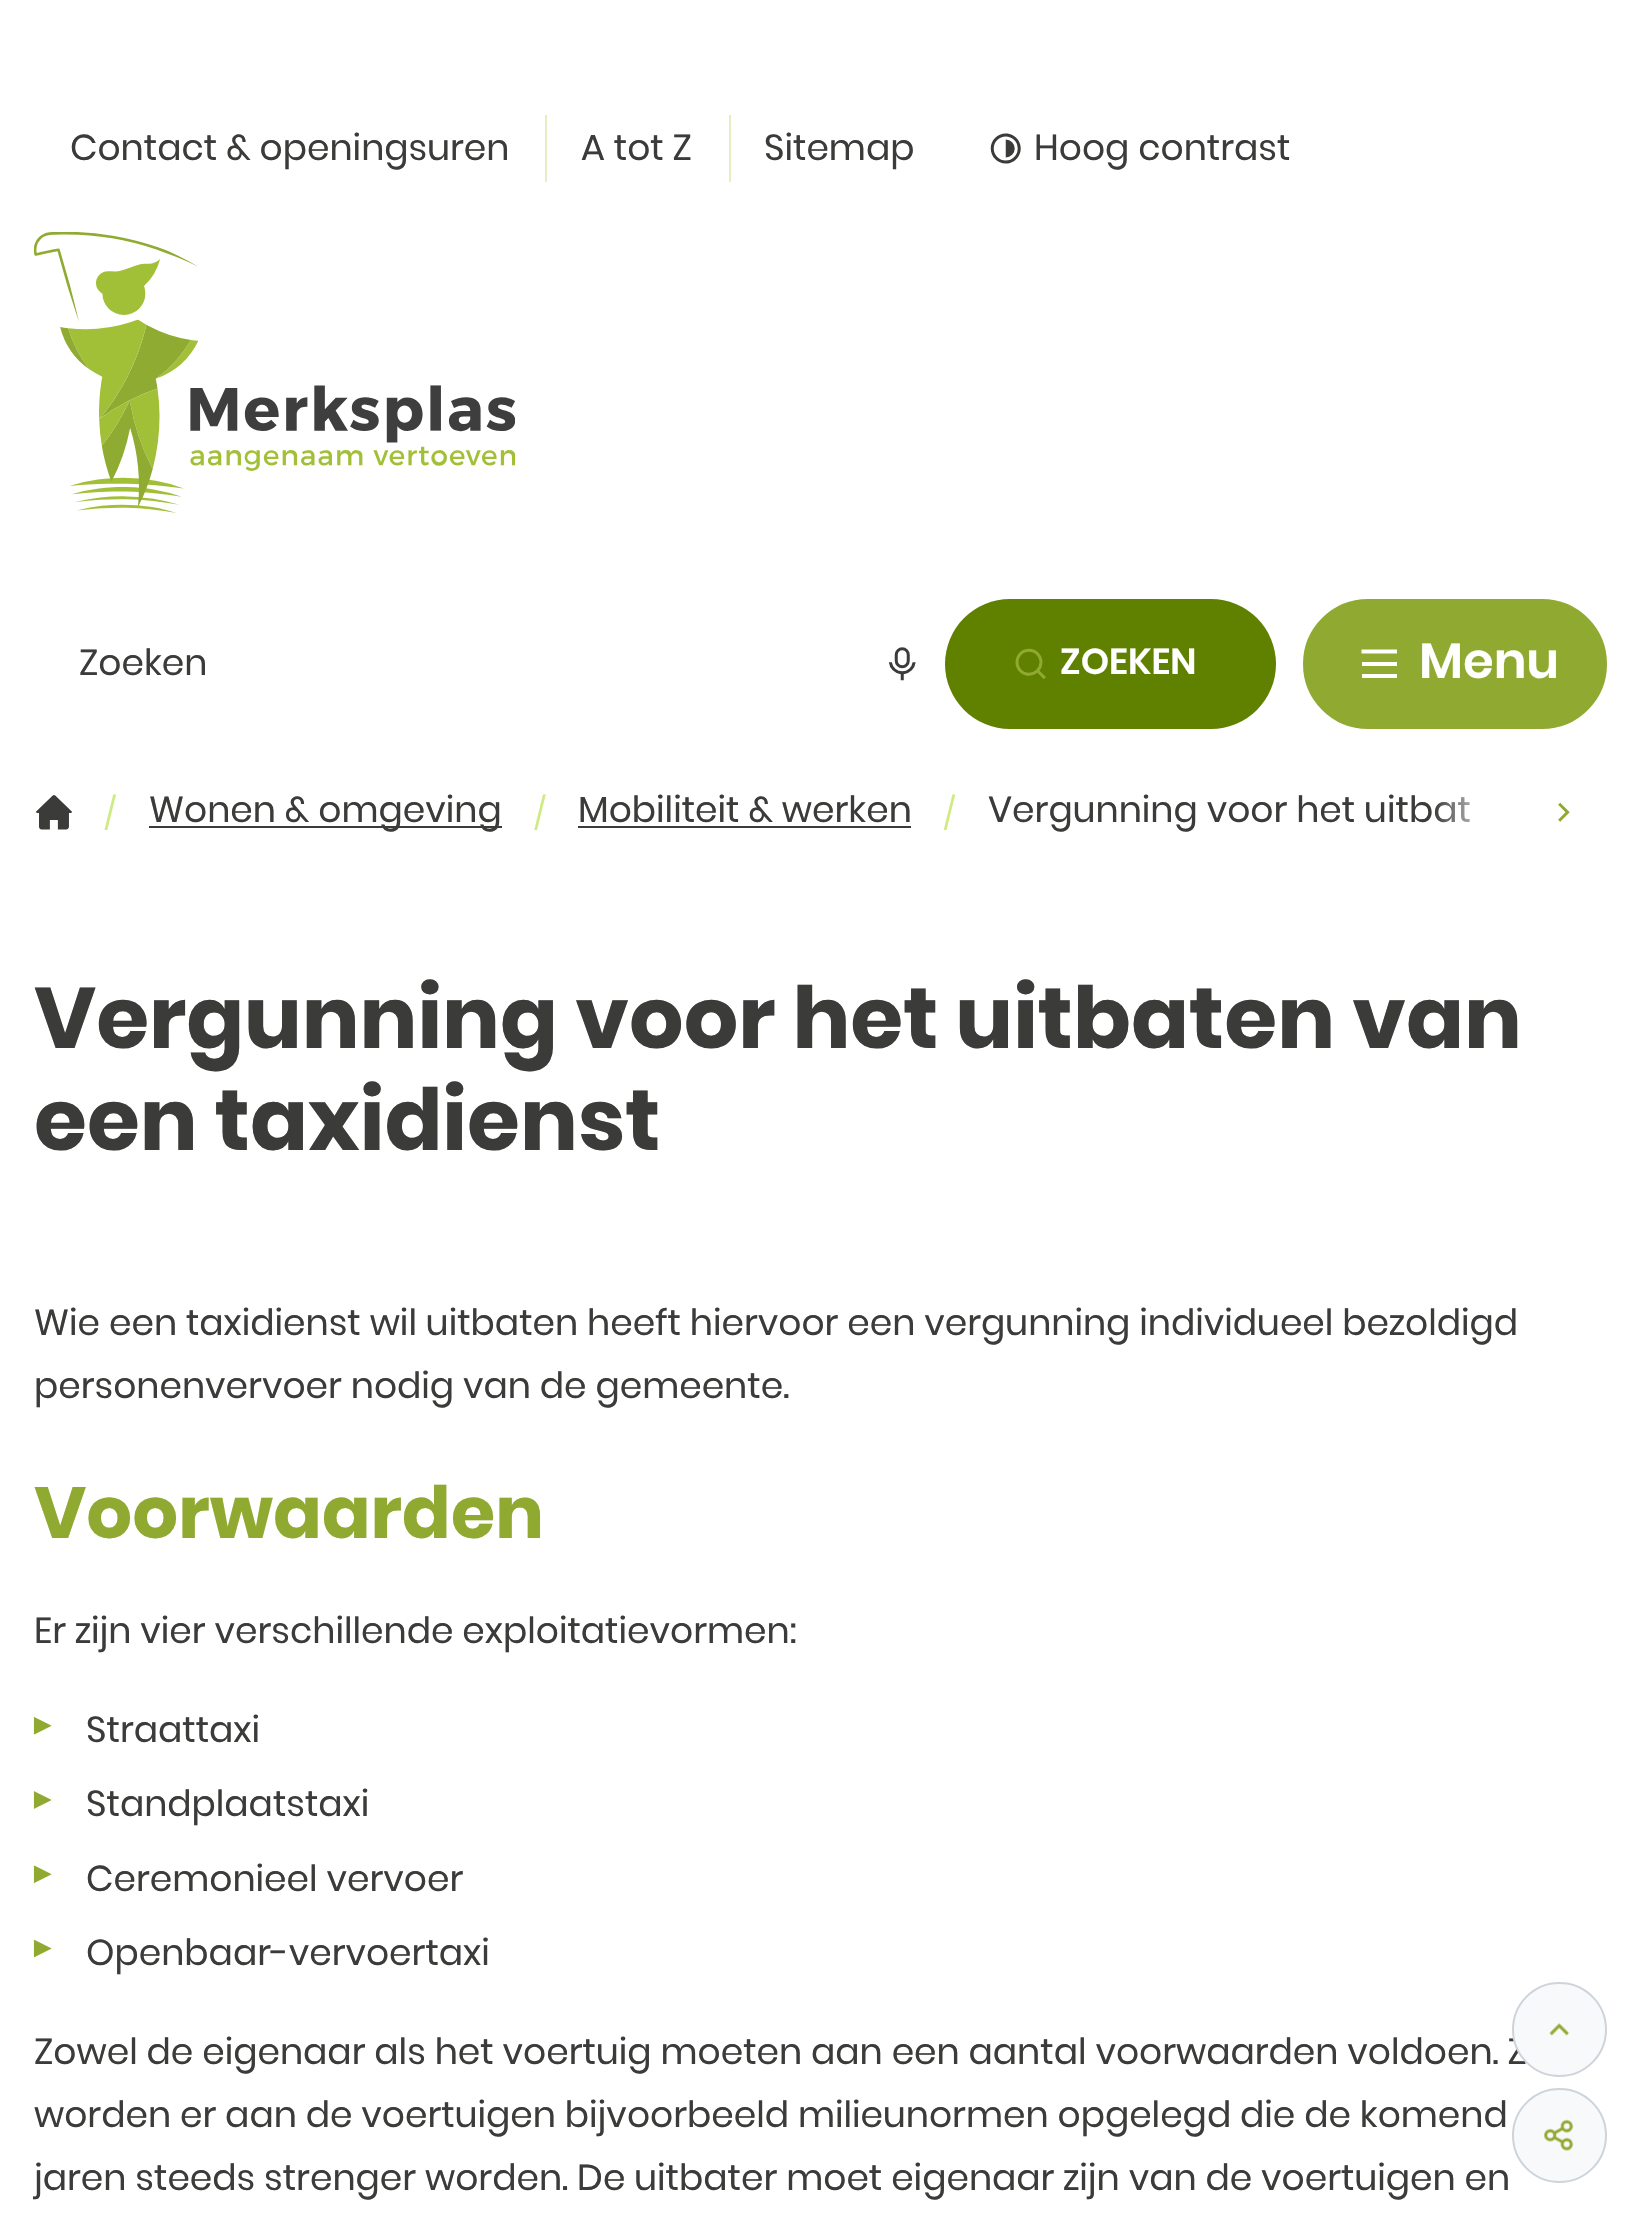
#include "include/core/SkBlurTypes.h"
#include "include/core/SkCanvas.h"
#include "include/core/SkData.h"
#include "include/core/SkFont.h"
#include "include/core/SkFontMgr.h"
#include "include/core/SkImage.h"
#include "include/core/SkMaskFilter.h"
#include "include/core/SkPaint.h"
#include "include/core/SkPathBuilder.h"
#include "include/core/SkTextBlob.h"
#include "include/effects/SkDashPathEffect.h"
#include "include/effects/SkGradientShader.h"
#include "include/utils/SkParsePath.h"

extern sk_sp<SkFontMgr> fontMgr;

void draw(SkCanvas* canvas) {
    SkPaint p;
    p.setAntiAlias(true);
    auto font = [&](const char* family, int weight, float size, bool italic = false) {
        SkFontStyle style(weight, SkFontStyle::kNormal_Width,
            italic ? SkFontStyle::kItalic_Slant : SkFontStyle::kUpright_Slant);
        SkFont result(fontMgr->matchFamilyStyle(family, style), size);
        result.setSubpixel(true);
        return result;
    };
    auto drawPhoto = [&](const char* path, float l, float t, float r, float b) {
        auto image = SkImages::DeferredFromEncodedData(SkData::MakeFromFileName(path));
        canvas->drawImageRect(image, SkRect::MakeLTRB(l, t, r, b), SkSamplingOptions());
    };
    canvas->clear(0xFFFFFFFF);
    auto font1 = font("Poppins", 400, 36);
    p.setColor(0xFF3B3B3A);
    canvas->drawString("Contact & openingsuren", 70, 160, font1, p);
    p.setColor(0xFFE3EFC3);
    canvas->drawRect(SkRect::MakeLTRB(545, 115, 547, 182), p);
    p.setColor(0xFF3B3B3A);
    canvas->drawString("A tot Z", 581, 160, font1, p);
    p.setColor(0xFFE3EFC3);
    canvas->drawRect(SkRect::MakeLTRB(729, 115, 731, 182), p);
    p.setColor(0xFF3B3B3A);
    canvas->drawString("Sitemap", 764, 160, font1, p);
    drawPhoto("media/1.png", 990, 133, 1021, 164);
    canvas->drawString("Hoog contrast", 1034, 160, font1, p);
    drawPhoto("media/2.png", 34, 232, 515, 513);
    canvas->drawString("Zoeken", 79, 675, font1, p);
    drawPhoto("media/3.png", 888, 647, 916, 681);
    p.setColor(0xFF608000);
    canvas->drawRoundRect(SkRect::MakeLTRB(945, 599, 1276, 729), 65, 65, p);
    drawPhoto("media/4.png", 1015, 648, 1046, 679);
    auto font2 = font("Poppins", 600, 36);
    p.setColor(0xFFFFFFFF);
    canvas->drawString("ZOEKEN", 1060, 674, font2, p);
    p.setColor(0xFF90AA31);
    canvas->drawRoundRect(SkRect::MakeLTRB(1304, 600, 1606, 728), 64, 64, p);
    p.setStyle(SkPaint::kStroke_Style);
    p.setStrokeWidth(2);
    canvas->drawRoundRect(SkRect::MakeLTRB(1304, 600, 1606, 728), 64, 64, p);
    p.setStrokeWidth(4.1f);
    p.setColor(0xFFFFFFFF);
    canvas->drawPath(SkPathBuilder().moveTo(1361.5f, 651.5f).lineTo(1397, 651.5f).detach(), p);
    p.setStyle(SkPaint::kFill_Style);
    canvas->drawRect(SkRect::MakeLTRB(1362, 662, 1397, 666), p);
    canvas->drawRect(SkRect::MakeLTRB(1362, 674, 1397, 678), p);
    auto font3 = font("Poppins", 600, 49.5f);
    canvas->drawString("Menu", 1419, 678, font3, p);
    drawPhoto("media/5.png", 36, 795, 72, 830);
    drawPhoto("media/6.png", 104, 794, 116, 831);
    p.setColor(0xFF3B3B3A);
    canvas->drawRect(SkRect::MakeLTRB(149, 826, 502, 828), p);
    canvas->drawString("Wonen & omgeving", 149, 822, font1, p);
    drawPhoto("media/7.png", 534, 794, 546, 831);
    canvas->drawString("Mobiliteit & werken", 578, 822, font1, p);
    canvas->drawRect(SkRect::MakeLTRB(578, 826, 911, 828), p);
    drawPhoto("media/8.png", 943, 794, 956, 831);
    canvas->drawString("Vergunning voor het uitbat", 988, 822, font1, p);
    {
        const SkColor colors[] = {0x00FFFFFF, 0xFFFFFFFF};
        const float stops[] = {0, 1};
        const SkPoint ends[] = {{1433, 812}, {1501, 812}};
        p.setShader(SkGradientShader::MakeLinear(ends, colors, stops, 2, SkTileMode::kClamp));
        p.setAlpha(255);
    }
    canvas->drawRect(SkRect::MakeLTRB(1435, 797, 1470, 823), p);
    drawPhoto("media/9.png", 1558, 802, 1570, 822);
    auto font4 = font("Poppins", 700, 85.5f);
    p.setShader(nullptr);
    p.setColor(0xFF3B3B3A);
    canvas->drawString("Vergunning voor het uitbaten van", 34, 1048, font4, p);
    canvas->drawString("een taxidienst", 34, 1150, font4, p);
    canvas->drawString("Wie een taxidienst wil uitbaten heeft hiervoor een vergunning individueel bezoldigd", 34, 1335, font1, p);
    canvas->drawString("personenvervoer nodig van de gemeente.", 34, 1398, font1, p);
    auto font5 = font("Poppins", 700, 72);
    p.setColor(0xFF90AA31);
    canvas->drawString("Voorwaarden", 34, 1538, font5, p);
    p.setColor(0xFF3B3B3A);
    canvas->drawString("Er zijn vier verschillende exploitatievormen:", 34, 1643, font1, p);
    drawPhoto("media/10.png", 33, 1717, 52, 1735);
    canvas->drawString("Straattaxi", 86, 1742, font1, p);
    drawPhoto("media/11.png", 33, 1791, 52, 1809);
    canvas->drawString("Standplaatstaxi", 86, 1816, font1, p);
    drawPhoto("media/12.png", 33, 1865, 52, 1883);
    canvas->drawString("Ceremonieel vervoer", 86, 1891, font1, p);
    drawPhoto("media/13.png", 33, 1939, 52, 1958);
    {
        const struct { const char* s; float x, y; } items[] = {
            {"Openbaar-vervoertaxi", 86, 1965},
            {"Zowel de eigenaar als het voertuig moeten aan een aantal voorwaarden voldoen. Z", 34, 2064},
            {"worden er aan de voertuigen bijvoorbeeld milieunormen opgelegd die de komend", 34, 2127},
            {"jaren steeds strenger worden. De uitbater moet eigenaar zijn van de voertuigen en", 34, 2190},
        };
        for (auto [s, x, y] : items) {
            canvas->drawString(s, x, y, font1, p);
        }
    }
    p.setColor(0xFFF8F9FA);
    canvas->drawCircle(1559.5f, 2029.5f, 46.5f, p);
    p.setStyle(SkPaint::kStroke_Style);
    p.setStrokeWidth(2);
    p.setColor(0xFFCED4DA);
    canvas->drawCircle(1559.5f, 2029.5f, 46.5f, p);
    drawPhoto("media/14.png", 1549, 2023, 1570, 2036);
    p.setStyle(SkPaint::kFill_Style);
    p.setColor(0xFFF8F9FA);
    canvas->drawCircle(1559.5f, 2135.5f, 46.5f, p);
    p.setStyle(SkPaint::kStroke_Style);
    p.setColor(0xFFCED4DA);
    canvas->drawCircle(1559.5f, 2135.5f, 46.5f, p);
    drawPhoto("media/15.png", 1544, 2119, 1574, 2151);
}
